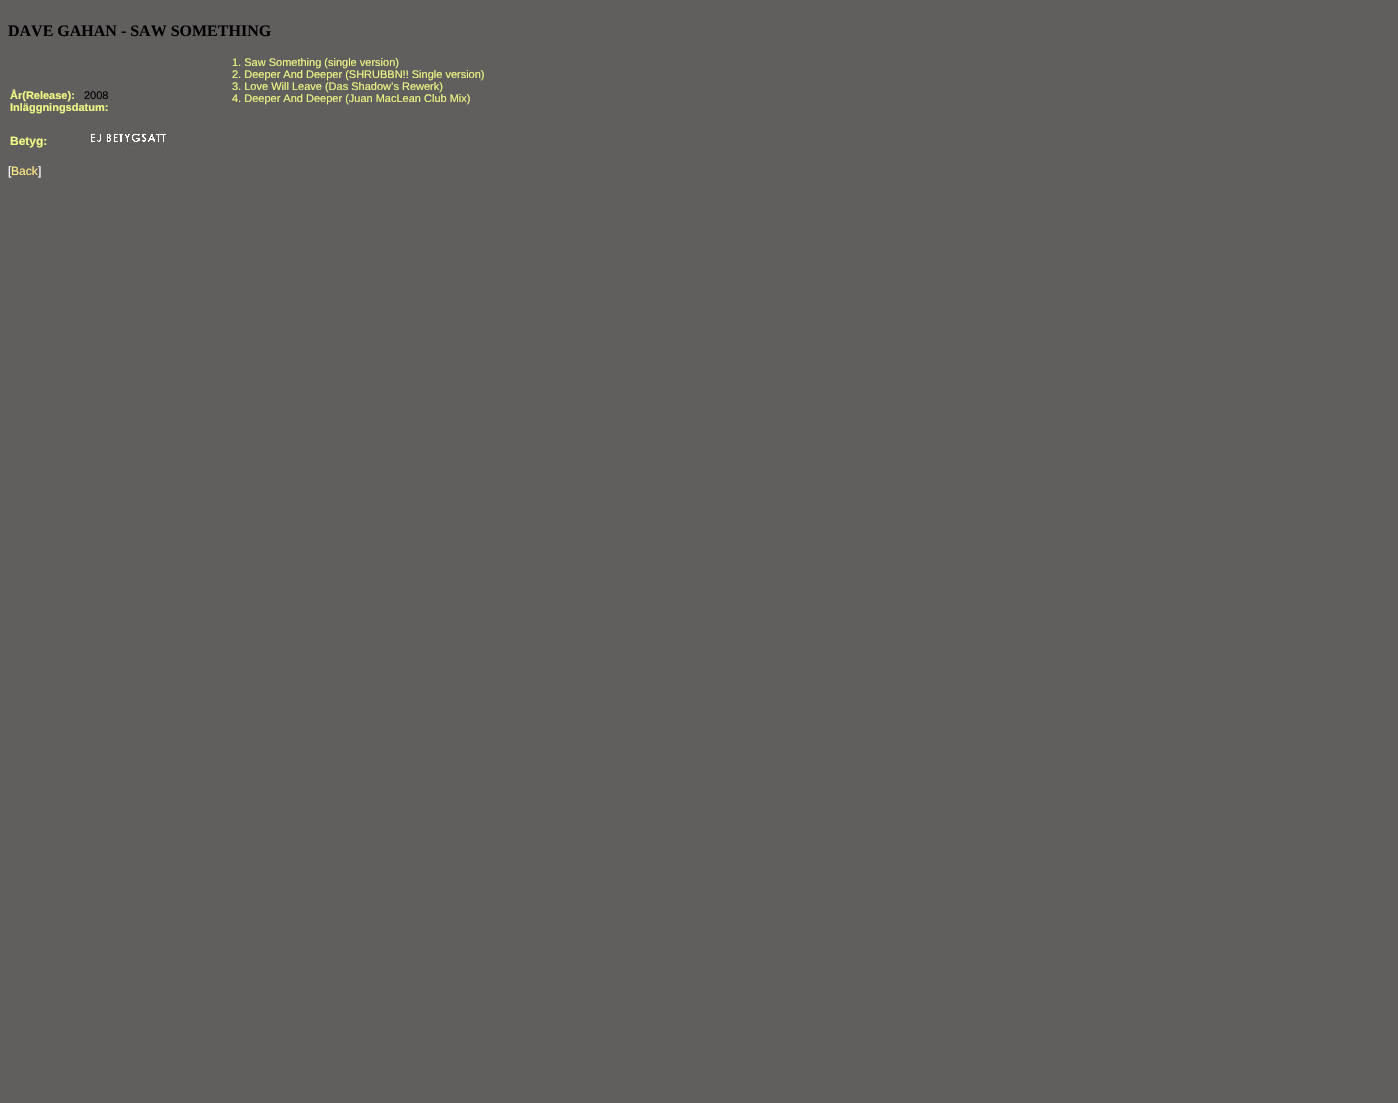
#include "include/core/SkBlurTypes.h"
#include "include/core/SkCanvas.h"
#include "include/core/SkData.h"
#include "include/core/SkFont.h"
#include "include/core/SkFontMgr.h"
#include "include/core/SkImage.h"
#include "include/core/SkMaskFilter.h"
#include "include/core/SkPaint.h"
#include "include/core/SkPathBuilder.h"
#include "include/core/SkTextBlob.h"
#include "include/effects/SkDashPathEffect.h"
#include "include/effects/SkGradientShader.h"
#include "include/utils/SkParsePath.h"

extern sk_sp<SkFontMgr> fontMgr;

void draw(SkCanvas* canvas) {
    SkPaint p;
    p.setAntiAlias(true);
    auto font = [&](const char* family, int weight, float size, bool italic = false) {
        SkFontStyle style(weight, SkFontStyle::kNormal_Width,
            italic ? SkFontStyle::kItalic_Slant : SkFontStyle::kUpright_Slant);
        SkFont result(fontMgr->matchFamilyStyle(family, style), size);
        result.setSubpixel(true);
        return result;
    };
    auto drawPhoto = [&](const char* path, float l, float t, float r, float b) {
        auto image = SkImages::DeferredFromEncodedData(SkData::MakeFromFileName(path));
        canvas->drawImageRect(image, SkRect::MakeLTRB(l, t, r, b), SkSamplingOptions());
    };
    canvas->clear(0xFF615E5E);
    auto font1 = font("Liberation Serif", 700, 16);
    p.setColor(0xFF000000);
    canvas->drawString("DAVE GAHAN - SAW SOMETHING", 8, 36, font1, p);
    auto font2 = font("Liberation Sans", 700, 11);
    p.setColor(0xFFEFF984);
    canvas->drawString("År(Release):", 10, 99, font2, p);
    auto font3 = font("Liberation Sans", 400, 11);
    p.setColor(0xFF000000);
    canvas->drawString("2008", 84, 99, font3, p);
    p.setColor(0xFFEFF984);
    canvas->drawString("Inläggningsdatum:", 10, 111, font2, p);
    {
        const struct { const char* s; float x, y; } items[] = {
            {"1. Saw Something (single version)", 232, 66},
            {"2. Deeper And Deeper (SHRUBBN!! Single version)", 232, 78},
            {"3. Love Will Leave (Das Shadow’s Rewerk)", 232, 90},
            {"4. Deeper And Deeper (Juan MacLean Club Mix)", 232, 102},
        };
        for (auto [s, x, y] : items) {
            canvas->drawString(s, x, y, font3, p);
        }
    }
    auto font4 = font("Liberation Sans", 700, 12);
    canvas->drawString("Betyg:", 10, 145, font4, p);
    drawPhoto("media/1.png", 91, 130, 171, 145);
    auto font5 = font("Liberation Sans", 400, 12);
    p.setColor(0xFFFFFFFF);
    canvas->drawString("[", 8, 175, font5, p);
    p.setColor(0xFFFCEA83);
    canvas->drawString("Back", 11, 175, font5, p);
    p.setColor(0xFFFFFFFF);
    canvas->drawString("]", 38, 175, font5, p);
}
